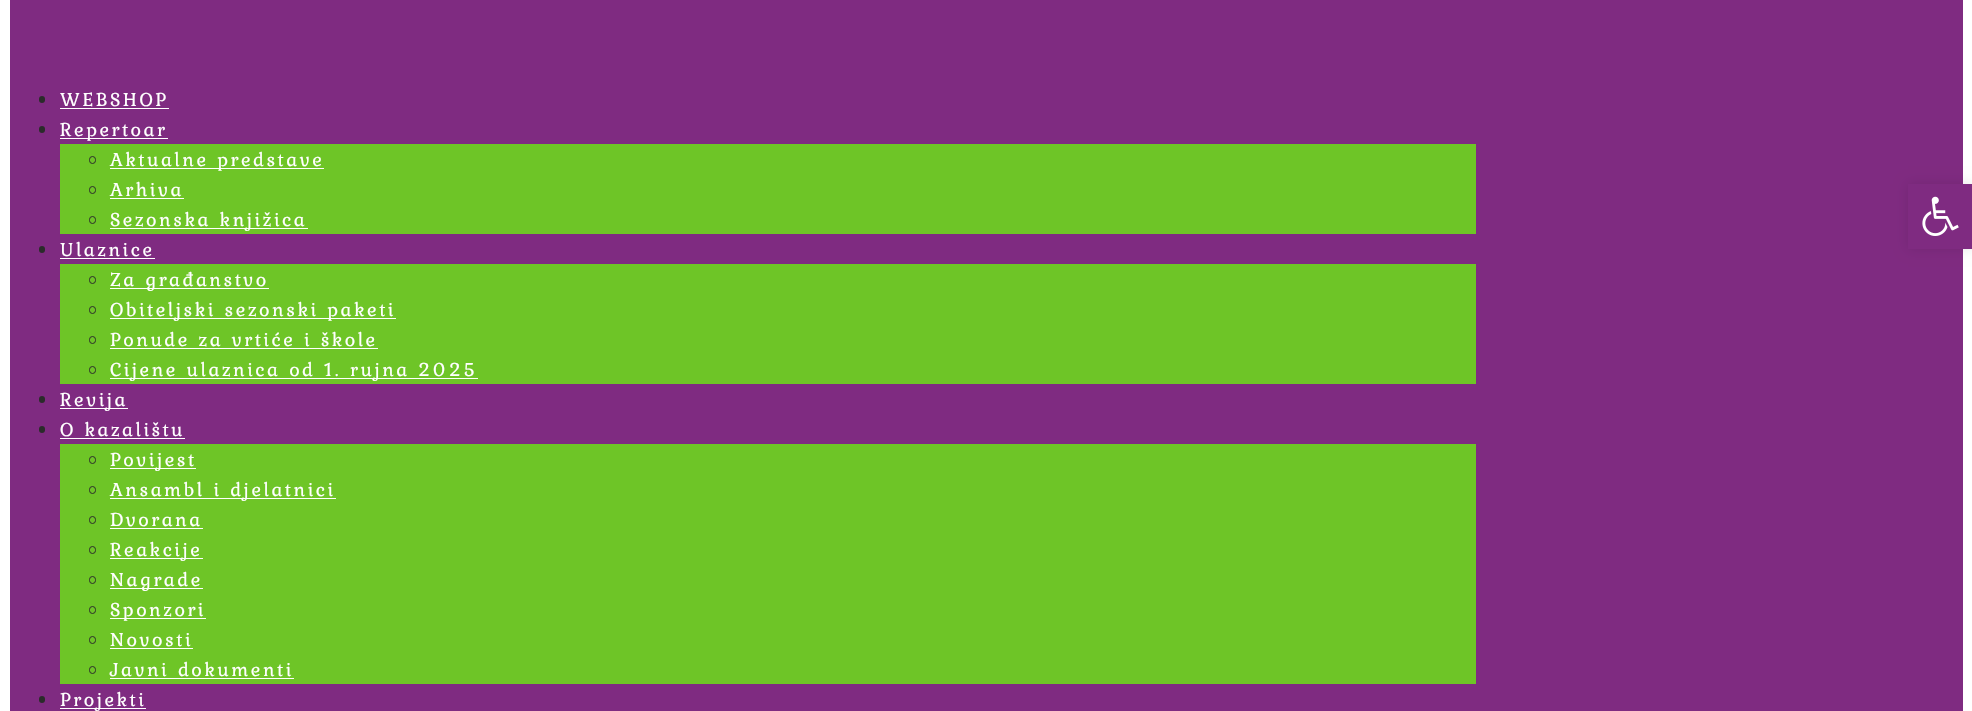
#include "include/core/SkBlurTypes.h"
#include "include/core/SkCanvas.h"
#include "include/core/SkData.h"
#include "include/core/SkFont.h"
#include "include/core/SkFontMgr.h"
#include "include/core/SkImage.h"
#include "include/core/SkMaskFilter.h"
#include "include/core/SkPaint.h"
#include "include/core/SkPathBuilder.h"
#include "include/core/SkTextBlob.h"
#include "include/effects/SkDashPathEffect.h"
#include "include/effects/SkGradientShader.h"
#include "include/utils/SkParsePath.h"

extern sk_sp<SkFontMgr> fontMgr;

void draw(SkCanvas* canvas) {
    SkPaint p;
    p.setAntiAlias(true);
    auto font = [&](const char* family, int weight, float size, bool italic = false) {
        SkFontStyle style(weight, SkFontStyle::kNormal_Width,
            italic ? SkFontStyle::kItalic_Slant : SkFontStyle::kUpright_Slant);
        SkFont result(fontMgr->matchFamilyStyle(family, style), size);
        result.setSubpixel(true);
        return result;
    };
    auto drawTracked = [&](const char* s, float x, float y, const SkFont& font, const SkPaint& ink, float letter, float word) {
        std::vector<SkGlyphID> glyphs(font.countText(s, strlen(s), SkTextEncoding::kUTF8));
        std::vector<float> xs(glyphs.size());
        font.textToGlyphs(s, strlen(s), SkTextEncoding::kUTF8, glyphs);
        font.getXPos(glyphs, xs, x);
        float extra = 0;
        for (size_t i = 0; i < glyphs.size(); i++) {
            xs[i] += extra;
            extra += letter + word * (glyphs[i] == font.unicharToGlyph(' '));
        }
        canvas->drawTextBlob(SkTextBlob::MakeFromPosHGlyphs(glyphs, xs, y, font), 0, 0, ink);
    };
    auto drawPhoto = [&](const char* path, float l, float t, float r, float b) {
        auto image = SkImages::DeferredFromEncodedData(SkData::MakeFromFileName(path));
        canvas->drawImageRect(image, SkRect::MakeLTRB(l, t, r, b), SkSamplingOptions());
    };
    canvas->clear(0xFFFFFFFF);
    p.setColor(0xFF7F2B81);
    canvas->drawRect(SkRect::MakeLTRB(10, 0, 1963, 711), p);
    p.setColor(0xFF2B2B2B);
    canvas->drawRoundRect(SkRect::MakeLTRB(39, 96, 45, 103), 3, 3, p);
    auto font1 = font("Kurale", 400, 20);
    p.setColor(0xFFFFFFFF);
    drawTracked("WEBSHOP", 60, 106, font1, p, 2.5f, 0);
    canvas->drawRect(SkRect::MakeLTRB(60, 108, 169, 109), p);
    p.setColor(0xFF2B2B2B);
    canvas->drawRoundRect(SkRect::MakeLTRB(39, 126, 45, 133), 3, 3, p);
    p.setColor(0xFFFFFFFF);
    canvas->drawRect(SkRect::MakeLTRB(60, 138, 168, 139), p);
    drawTracked("Repertoar", 60, 136, font1, p, 2.5f, 0);
    p.setColor(0xFF6EC527);
    canvas->drawRect(SkRect::MakeLTRB(60, 144, 1476, 234), p);
    p.setStyle(SkPaint::kStroke_Style);
    p.setStrokeWidth(1);
    p.setColor(0xFF2B2B2B);
    canvas->drawRoundRect(SkRect::MakeLTRB(89.5f, 156.5f, 95.5f, 163.5f), 3, 3, p);
    p.setStyle(SkPaint::kFill_Style);
    p.setColor(0xFFFFFFFF);
    canvas->drawRect(SkRect::MakeLTRB(110, 168, 324, 169), p);
    drawTracked("Aktualne predstave", 110, 166, font1, p, 2.5f, 0);
    p.setStyle(SkPaint::kStroke_Style);
    p.setColor(0xFF2B2B2B);
    canvas->drawRoundRect(SkRect::MakeLTRB(89.5f, 186.5f, 95.5f, 193.5f), 3, 3, p);
    p.setStyle(SkPaint::kFill_Style);
    p.setColor(0xFFFFFFFF);
    drawTracked("Arhiva", 110, 196, font1, p, 2.5f, 0);
    canvas->drawRect(SkRect::MakeLTRB(110, 198, 184, 199), p);
    p.setStyle(SkPaint::kStroke_Style);
    p.setColor(0xFF2B2B2B);
    canvas->drawRoundRect(SkRect::MakeLTRB(89.5f, 216.5f, 95.5f, 223.5f), 3, 3, p);
    p.setStyle(SkPaint::kFill_Style);
    p.setColor(0xFFFFFFFF);
    canvas->drawRect(SkRect::MakeLTRB(110, 228, 308, 229), p);
    drawTracked("Sezonska knjižica", 110, 226, font1, p, 2.5f, 0);
    p.setColor(0xFF2B2B2B);
    canvas->drawRoundRect(SkRect::MakeLTRB(39, 246, 45, 253), 3, 3, p);
    p.setColor(0xFFFFFFFF);
    drawTracked("Ulaznice", 60, 256, font1, p, 2.5f, 0);
    canvas->drawRect(SkRect::MakeLTRB(60, 258, 155, 259), p);
    p.setColor(0xFF6EC527);
    canvas->drawRect(SkRect::MakeLTRB(60, 264, 1476, 384), p);
    p.setStyle(SkPaint::kStroke_Style);
    p.setColor(0xFF2B2B2B);
    canvas->drawRoundRect(SkRect::MakeLTRB(89.5f, 276.5f, 95.5f, 283.5f), 3, 3, p);
    p.setStyle(SkPaint::kFill_Style);
    p.setColor(0xFFFFFFFF);
    canvas->drawRect(SkRect::MakeLTRB(110, 288, 269, 289), p);
    drawTracked("Za građanstvo", 110, 286, font1, p, 2.5f, 0);
    p.setStyle(SkPaint::kStroke_Style);
    p.setColor(0xFF2B2B2B);
    canvas->drawRoundRect(SkRect::MakeLTRB(89.5f, 306.5f, 95.5f, 313.5f), 3, 3, p);
    p.setStyle(SkPaint::kFill_Style);
    p.setColor(0xFFFFFFFF);
    canvas->drawRect(SkRect::MakeLTRB(110, 318, 396, 319), p);
    drawTracked("Obiteljski sezonski paketi", 110, 316, font1, p, 2.5f, 0);
    p.setStyle(SkPaint::kStroke_Style);
    p.setColor(0xFF2B2B2B);
    canvas->drawRoundRect(SkRect::MakeLTRB(89.5f, 336.5f, 95.5f, 343.5f), 3, 3, p);
    p.setStyle(SkPaint::kFill_Style);
    p.setColor(0xFFFFFFFF);
    drawTracked("Ponude za vrtiće i škole", 110, 346, font1, p, 2.5f, 0);
    canvas->drawRect(SkRect::MakeLTRB(110, 348, 378, 349), p);
    p.setStyle(SkPaint::kStroke_Style);
    p.setColor(0xFF2B2B2B);
    canvas->drawRoundRect(SkRect::MakeLTRB(89.5f, 366.5f, 95.5f, 373.5f), 3, 3, p);
    p.setStyle(SkPaint::kFill_Style);
    p.setColor(0xFFFFFFFF);
    canvas->drawRect(SkRect::MakeLTRB(110, 378, 478, 379), p);
    drawTracked("Cijene ulaznica od 1. rujna 2025", 110, 376, font1, p, 2.5f, 0);
    p.setColor(0xFF2B2B2B);
    canvas->drawRoundRect(SkRect::MakeLTRB(39, 396, 45, 403), 3, 3, p);
    p.setColor(0xFFFFFFFF);
    canvas->drawRect(SkRect::MakeLTRB(60, 408, 128, 409), p);
    drawTracked("Revija", 60, 406, font1, p, 2.5f, 0);
    p.setColor(0xFF2B2B2B);
    canvas->drawRoundRect(SkRect::MakeLTRB(39, 426, 45, 433), 3, 3, p);
    p.setColor(0xFFFFFFFF);
    drawTracked("O kazalištu", 60, 436, font1, p, 2.5f, 0);
    canvas->drawRect(SkRect::MakeLTRB(60, 438, 185, 439), p);
    p.setColor(0xFF6EC527);
    canvas->drawRect(SkRect::MakeLTRB(60, 444, 1476, 684), p);
    p.setStyle(SkPaint::kStroke_Style);
    p.setColor(0xFF2B2B2B);
    canvas->drawRoundRect(SkRect::MakeLTRB(89.5f, 456.5f, 95.5f, 463.5f), 3, 3, p);
    p.setStyle(SkPaint::kFill_Style);
    p.setColor(0xFFFFFFFF);
    canvas->drawRect(SkRect::MakeLTRB(110, 468, 196, 469), p);
    drawTracked("Povijest", 110, 466, font1, p, 2.5f, 0);
    p.setStyle(SkPaint::kStroke_Style);
    p.setColor(0xFF2B2B2B);
    canvas->drawRoundRect(SkRect::MakeLTRB(89.5f, 486.5f, 95.5f, 493.5f), 3, 3, p);
    p.setStyle(SkPaint::kFill_Style);
    p.setColor(0xFFFFFFFF);
    canvas->drawRect(SkRect::MakeLTRB(110, 498, 336, 499), p);
    drawTracked("Ansambl i djelatnici", 110, 496, font1, p, 2.5f, 0);
    p.setStyle(SkPaint::kStroke_Style);
    p.setColor(0xFF2B2B2B);
    canvas->drawRoundRect(SkRect::MakeLTRB(89.5f, 516.5f, 95.5f, 523.5f), 3, 3, p);
    p.setStyle(SkPaint::kFill_Style);
    p.setColor(0xFFFFFFFF);
    drawTracked("Dvorana", 110, 526, font1, p, 2.5f, 0);
    canvas->drawRect(SkRect::MakeLTRB(110, 528, 203, 529), p);
    p.setStyle(SkPaint::kStroke_Style);
    p.setColor(0xFF2B2B2B);
    canvas->drawRoundRect(SkRect::MakeLTRB(89.5f, 546.5f, 95.5f, 553.5f), 3, 3, p);
    p.setStyle(SkPaint::kFill_Style);
    p.setColor(0xFFFFFFFF);
    canvas->drawRect(SkRect::MakeLTRB(110, 558, 203, 559), p);
    drawTracked("Reakcije", 110, 556, font1, p, 2.5f, 0);
    p.setStyle(SkPaint::kStroke_Style);
    p.setColor(0xFF2B2B2B);
    canvas->drawRoundRect(SkRect::MakeLTRB(89.5f, 576.5f, 95.5f, 583.5f), 3, 3, p);
    p.setStyle(SkPaint::kFill_Style);
    p.setColor(0xFFFFFFFF);
    canvas->drawRect(SkRect::MakeLTRB(110, 588, 203, 589), p);
    drawTracked("Nagrade", 110, 586, font1, p, 2.5f, 0);
    p.setStyle(SkPaint::kStroke_Style);
    p.setColor(0xFF2B2B2B);
    canvas->drawRoundRect(SkRect::MakeLTRB(89.5f, 606.5f, 95.5f, 613.5f), 3, 3, p);
    p.setStyle(SkPaint::kFill_Style);
    p.setColor(0xFFFFFFFF);
    canvas->drawRect(SkRect::MakeLTRB(110, 618, 206, 619), p);
    drawTracked("Sponzori", 110, 616, font1, p, 2.5f, 0);
    p.setStyle(SkPaint::kStroke_Style);
    p.setColor(0xFF2B2B2B);
    canvas->drawRoundRect(SkRect::MakeLTRB(89.5f, 636.5f, 95.5f, 643.5f), 3, 3, p);
    p.setStyle(SkPaint::kFill_Style);
    p.setColor(0xFFFFFFFF);
    drawTracked("Novosti", 110, 646, font1, p, 2.5f, 0);
    canvas->drawRect(SkRect::MakeLTRB(110, 648, 193, 649), p);
    p.setStyle(SkPaint::kStroke_Style);
    p.setColor(0xFF2B2B2B);
    canvas->drawRoundRect(SkRect::MakeLTRB(89.5f, 666.5f, 95.5f, 673.5f), 3, 3, p);
    p.setStyle(SkPaint::kFill_Style);
    p.setColor(0xFFFFFFFF);
    drawTracked("Javni dokumenti", 110, 676, font1, p, 2.5f, 0);
    canvas->drawRect(SkRect::MakeLTRB(110, 678, 294, 679), p);
    p.setColor(0xFF2B2B2B);
    canvas->drawRoundRect(SkRect::MakeLTRB(39, 696, 45, 703), 3, 3, p);
    p.setColor(0xFFFFFFFF);
    canvas->drawRect(SkRect::MakeLTRB(60, 708, 146, 709), p);
    drawTracked("Projekti", 60, 706, font1, p, 2.5f, 0);
    p.setColor(0x1A000000);
    p.setMaskFilter(SkMaskFilter::MakeBlur(kNormal_SkBlurStyle, 6));
    canvas->drawRect(SkRect::MakeLTRB(1908, 184, 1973, 249), p);
    p.setMaskFilter(nullptr);
    p.setColor(0xFF7F2B81);
    canvas->drawRect(SkRect::MakeLTRB(1908, 184, 1972, 249), p);
    drawPhoto("media/1.png", 1922, 196, 1959, 236);
}
